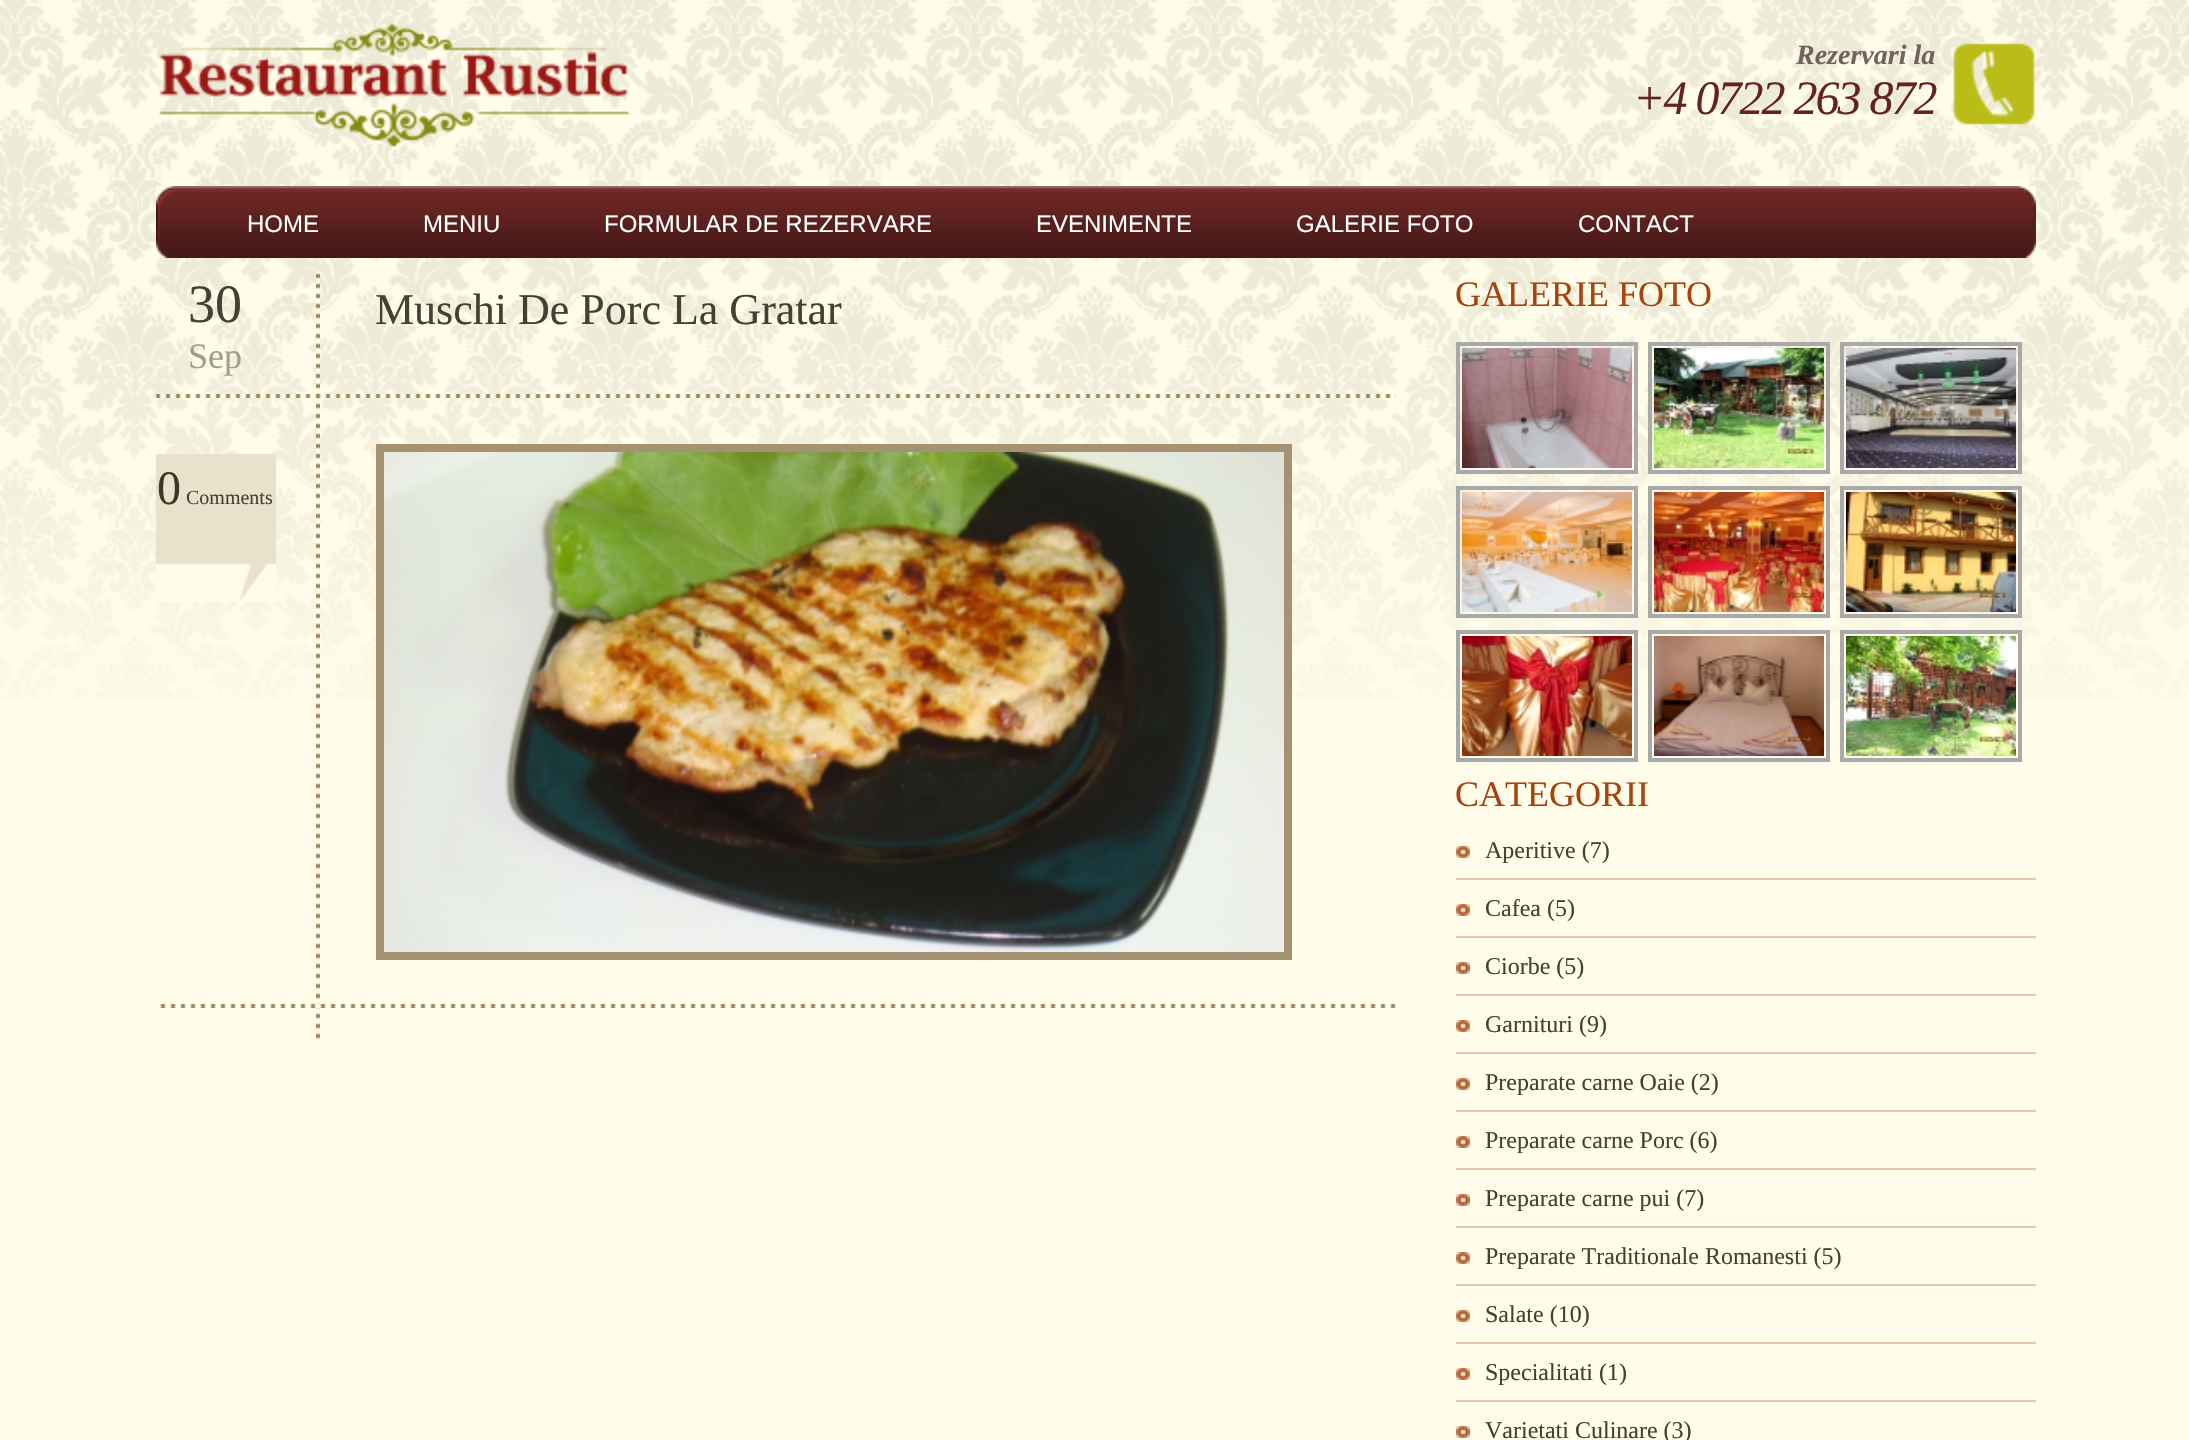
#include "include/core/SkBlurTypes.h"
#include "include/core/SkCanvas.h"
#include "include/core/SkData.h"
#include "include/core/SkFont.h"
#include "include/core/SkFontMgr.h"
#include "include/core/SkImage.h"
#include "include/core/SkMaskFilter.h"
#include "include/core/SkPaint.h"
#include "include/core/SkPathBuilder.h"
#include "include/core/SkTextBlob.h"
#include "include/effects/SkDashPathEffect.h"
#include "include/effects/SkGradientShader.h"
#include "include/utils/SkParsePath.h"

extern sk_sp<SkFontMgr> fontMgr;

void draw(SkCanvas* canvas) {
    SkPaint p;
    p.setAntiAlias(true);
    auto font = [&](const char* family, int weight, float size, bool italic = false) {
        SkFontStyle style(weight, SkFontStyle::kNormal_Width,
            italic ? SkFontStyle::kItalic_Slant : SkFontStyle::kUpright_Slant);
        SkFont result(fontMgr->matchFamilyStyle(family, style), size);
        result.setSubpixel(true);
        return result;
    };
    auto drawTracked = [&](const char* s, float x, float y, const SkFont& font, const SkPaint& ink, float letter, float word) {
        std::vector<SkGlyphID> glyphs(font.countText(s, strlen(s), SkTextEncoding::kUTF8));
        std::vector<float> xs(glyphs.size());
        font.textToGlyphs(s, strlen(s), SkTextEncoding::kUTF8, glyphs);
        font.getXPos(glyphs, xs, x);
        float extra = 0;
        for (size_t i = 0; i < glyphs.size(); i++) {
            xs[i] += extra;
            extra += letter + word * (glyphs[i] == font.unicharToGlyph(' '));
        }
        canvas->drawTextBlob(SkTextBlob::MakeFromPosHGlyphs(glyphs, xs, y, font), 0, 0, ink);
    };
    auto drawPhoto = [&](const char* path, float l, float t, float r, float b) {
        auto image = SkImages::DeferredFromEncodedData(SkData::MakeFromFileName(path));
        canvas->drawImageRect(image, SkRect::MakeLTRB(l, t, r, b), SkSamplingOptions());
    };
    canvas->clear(0xFFFFFDEA);
    drawPhoto("media/1.png", 0, 0, 2189, 700);
    drawPhoto("media/2.png", 159, 23, 631, 147);
    drawPhoto("media/3.png", 1953, 43, 2035, 125);
    auto font1 = font("Liberation Serif", 700, 28, true);
    p.setColor(0xFF6F625F);
    canvas->drawString("Rezervari la", 1796, 64, font1, p);
    auto font2 = font("Liberation Serif", 400, 48, true);
    p.setColor(0xFF642323);
    drawTracked("+4 0722 263 872", 1633, 114, font2, p, -2, 0);
    p.setColor(0xFFFFFDEA);
    canvas->drawRect(SkRect::MakeLTRB(156, 186, 2036, 258), p);
    drawPhoto("media/4.png", 156, 186, 2036, 258);
    auto font3 = font("Liberation Sans", 400, 24);
    p.setColor(0xFFFFFFFF);
    {
        const struct { const char* s; float x, y; } items[] = {
            {"HOME", 247, 232},
            {"MENIU", 423, 232},
            {"FORMULAR DE REZERVARE", 604, 232},
            {"EVENIMENTE", 1036, 232},
            {"GALERIE FOTO", 1296, 232},
            {"CONTACT", 1578, 232},
        };
        for (auto [s, x, y] : items) {
            canvas->drawString(s, x, y, font3, p);
        }
    }
    drawPhoto("media/5.png", 316, 274, 320, 1039);
    drawPhoto("media/6.png", 156, 394, 1396, 398);
    auto font4 = font("Liberation Serif", 400, 54);
    p.setColor(0xFF464032);
    canvas->drawString("30", 188, 322, font4, p);
    auto font5 = font("Liberation Serif", 400, 36);
    p.setColor(0xFFA29E8E);
    canvas->drawString("Sep", 188, 368, font5, p);
    auto font6 = font("Liberation Serif", 400, 44);
    p.setColor(0xFF464032);
    canvas->drawString("Muschi De Porc La Gratar", 375, 324, font6, p);
    drawPhoto("media/7.png", 156, 454, 276, 602);
    auto font7 = font("Liberation Serif", 400, 48);
    p.setColor(0xFF423724);
    canvas->drawString("0", 157, 504, font7, p);
    auto font8 = font("Liberation Serif", 400, 20);
    p.setColor(0xFF464032);
    canvas->drawString("Comments", 186, 504, font8, p);
    p.setStyle(SkPaint::kStroke_Style);
    p.setStrokeWidth(8);
    p.setColor(0xFFA49272);
    canvas->drawRect(SkRect::MakeLTRB(380, 448, 1288, 956), p);
    drawPhoto("media/8.png", 384, 452, 1284, 952);
    drawPhoto("media/9.png", 160, 1004, 1396, 1008);
    p.setStyle(SkPaint::kFill_Style);
    p.setColor(0xFFA7430F);
    canvas->drawString("GALERIE FOTO", 1455, 306, font5, p);
    p.setStyle(SkPaint::kStroke_Style);
    p.setStrokeWidth(4);
    p.setColor(0xFFA9A9A9);
    canvas->drawRect(SkRect::MakeLTRB(1458, 344, 1636, 472), p);
    canvas->drawRect(SkRect::MakeLTRB(1650, 344, 1828, 472), p);
    canvas->drawRect(SkRect::MakeLTRB(1842, 344, 2020, 472), p);
    drawPhoto("media/10.png", 1462, 348, 1632, 468);
    drawPhoto("media/11.png", 1654, 348, 1824, 468);
    drawPhoto("media/12.png", 1846, 348, 2016, 468);
    canvas->drawRect(SkRect::MakeLTRB(1458, 488, 1636, 616), p);
    canvas->drawRect(SkRect::MakeLTRB(1650, 488, 1828, 616), p);
    canvas->drawRect(SkRect::MakeLTRB(1842, 488, 2020, 616), p);
    drawPhoto("media/13.png", 1462, 492, 1632, 612);
    drawPhoto("media/14.png", 1654, 492, 1824, 612);
    drawPhoto("media/15.png", 1846, 492, 2016, 612);
    canvas->drawRect(SkRect::MakeLTRB(1458, 632, 1636, 760), p);
    canvas->drawRect(SkRect::MakeLTRB(1650, 632, 1828, 760), p);
    canvas->drawRect(SkRect::MakeLTRB(1842, 632, 2020, 760), p);
    drawPhoto("media/16.png", 1462, 636, 1632, 756);
    drawPhoto("media/17.png", 1654, 636, 1824, 756);
    drawPhoto("media/18.png", 1846, 636, 2016, 756);
    p.setStyle(SkPaint::kFill_Style);
    p.setColor(0xFFA7430F);
    canvas->drawString("CATEGORII", 1455, 806, font5, p);
    drawPhoto("media/19.png", 1456, 846, 1470, 858);
    p.setColor(0xFFE5C7AB);
    canvas->drawRect(SkRect::MakeLTRB(1456, 878, 2036, 880), p);
    auto font9 = font("Liberation Serif", 400, 24);
    p.setColor(0xFF464032);
    canvas->drawString("Aperitive (7)", 1485, 858, font9, p);
    drawPhoto("media/19.png", 1456, 904, 1470, 916);
    p.setColor(0xFFE5C7AB);
    canvas->drawRect(SkRect::MakeLTRB(1456, 936, 2036, 938), p);
    p.setColor(0xFF464032);
    canvas->drawString("Cafea (5)", 1485, 916, font9, p);
    drawPhoto("media/19.png", 1456, 962, 1470, 974);
    p.setColor(0xFFE5C7AB);
    canvas->drawRect(SkRect::MakeLTRB(1456, 994, 2036, 996), p);
    p.setColor(0xFF464032);
    canvas->drawString("Ciorbe (5)", 1485, 974, font9, p);
    drawPhoto("media/19.png", 1456, 1020, 1470, 1032);
    p.setColor(0xFFE5C7AB);
    canvas->drawRect(SkRect::MakeLTRB(1456, 1052, 2036, 1054), p);
    p.setColor(0xFF464032);
    canvas->drawString("Garnituri (9)", 1485, 1032, font9, p);
    drawPhoto("media/19.png", 1456, 1078, 1470, 1090);
    p.setColor(0xFFE5C7AB);
    canvas->drawRect(SkRect::MakeLTRB(1456, 1110, 2036, 1112), p);
    p.setColor(0xFF464032);
    canvas->drawString("Preparate carne Oaie (2)", 1485, 1090, font9, p);
    drawPhoto("media/19.png", 1456, 1136, 1470, 1148);
    p.setColor(0xFFE5C7AB);
    canvas->drawRect(SkRect::MakeLTRB(1456, 1168, 2036, 1170), p);
    p.setColor(0xFF464032);
    canvas->drawString("Preparate carne Porc (6)", 1485, 1148, font9, p);
    drawPhoto("media/19.png", 1456, 1194, 1470, 1206);
    p.setColor(0xFFE5C7AB);
    canvas->drawRect(SkRect::MakeLTRB(1456, 1226, 2036, 1228), p);
    p.setColor(0xFF464032);
    canvas->drawString("Preparate carne pui (7)", 1485, 1206, font9, p);
    drawPhoto("media/19.png", 1456, 1252, 1470, 1264);
    p.setColor(0xFFE5C7AB);
    canvas->drawRect(SkRect::MakeLTRB(1456, 1284, 2036, 1286), p);
    p.setColor(0xFF464032);
    canvas->drawString("Preparate Traditionale Romanesti (5)", 1485, 1264, font9, p);
    drawPhoto("media/19.png", 1456, 1310, 1470, 1322);
    p.setColor(0xFFE5C7AB);
    canvas->drawRect(SkRect::MakeLTRB(1456, 1342, 2036, 1344), p);
    p.setColor(0xFF464032);
    canvas->drawString("Salate (10)", 1485, 1322, font9, p);
    drawPhoto("media/19.png", 1456, 1368, 1470, 1380);
    p.setColor(0xFFE5C7AB);
    canvas->drawRect(SkRect::MakeLTRB(1456, 1400, 2036, 1402), p);
    p.setColor(0xFF464032);
    canvas->drawString("Specialitati (1)", 1485, 1380, font9, p);
    drawPhoto("media/19.png", 1456, 1426, 1470, 1438);
    canvas->drawString("Varietati Culinare (3)", 1485, 1438, font9, p);
}
